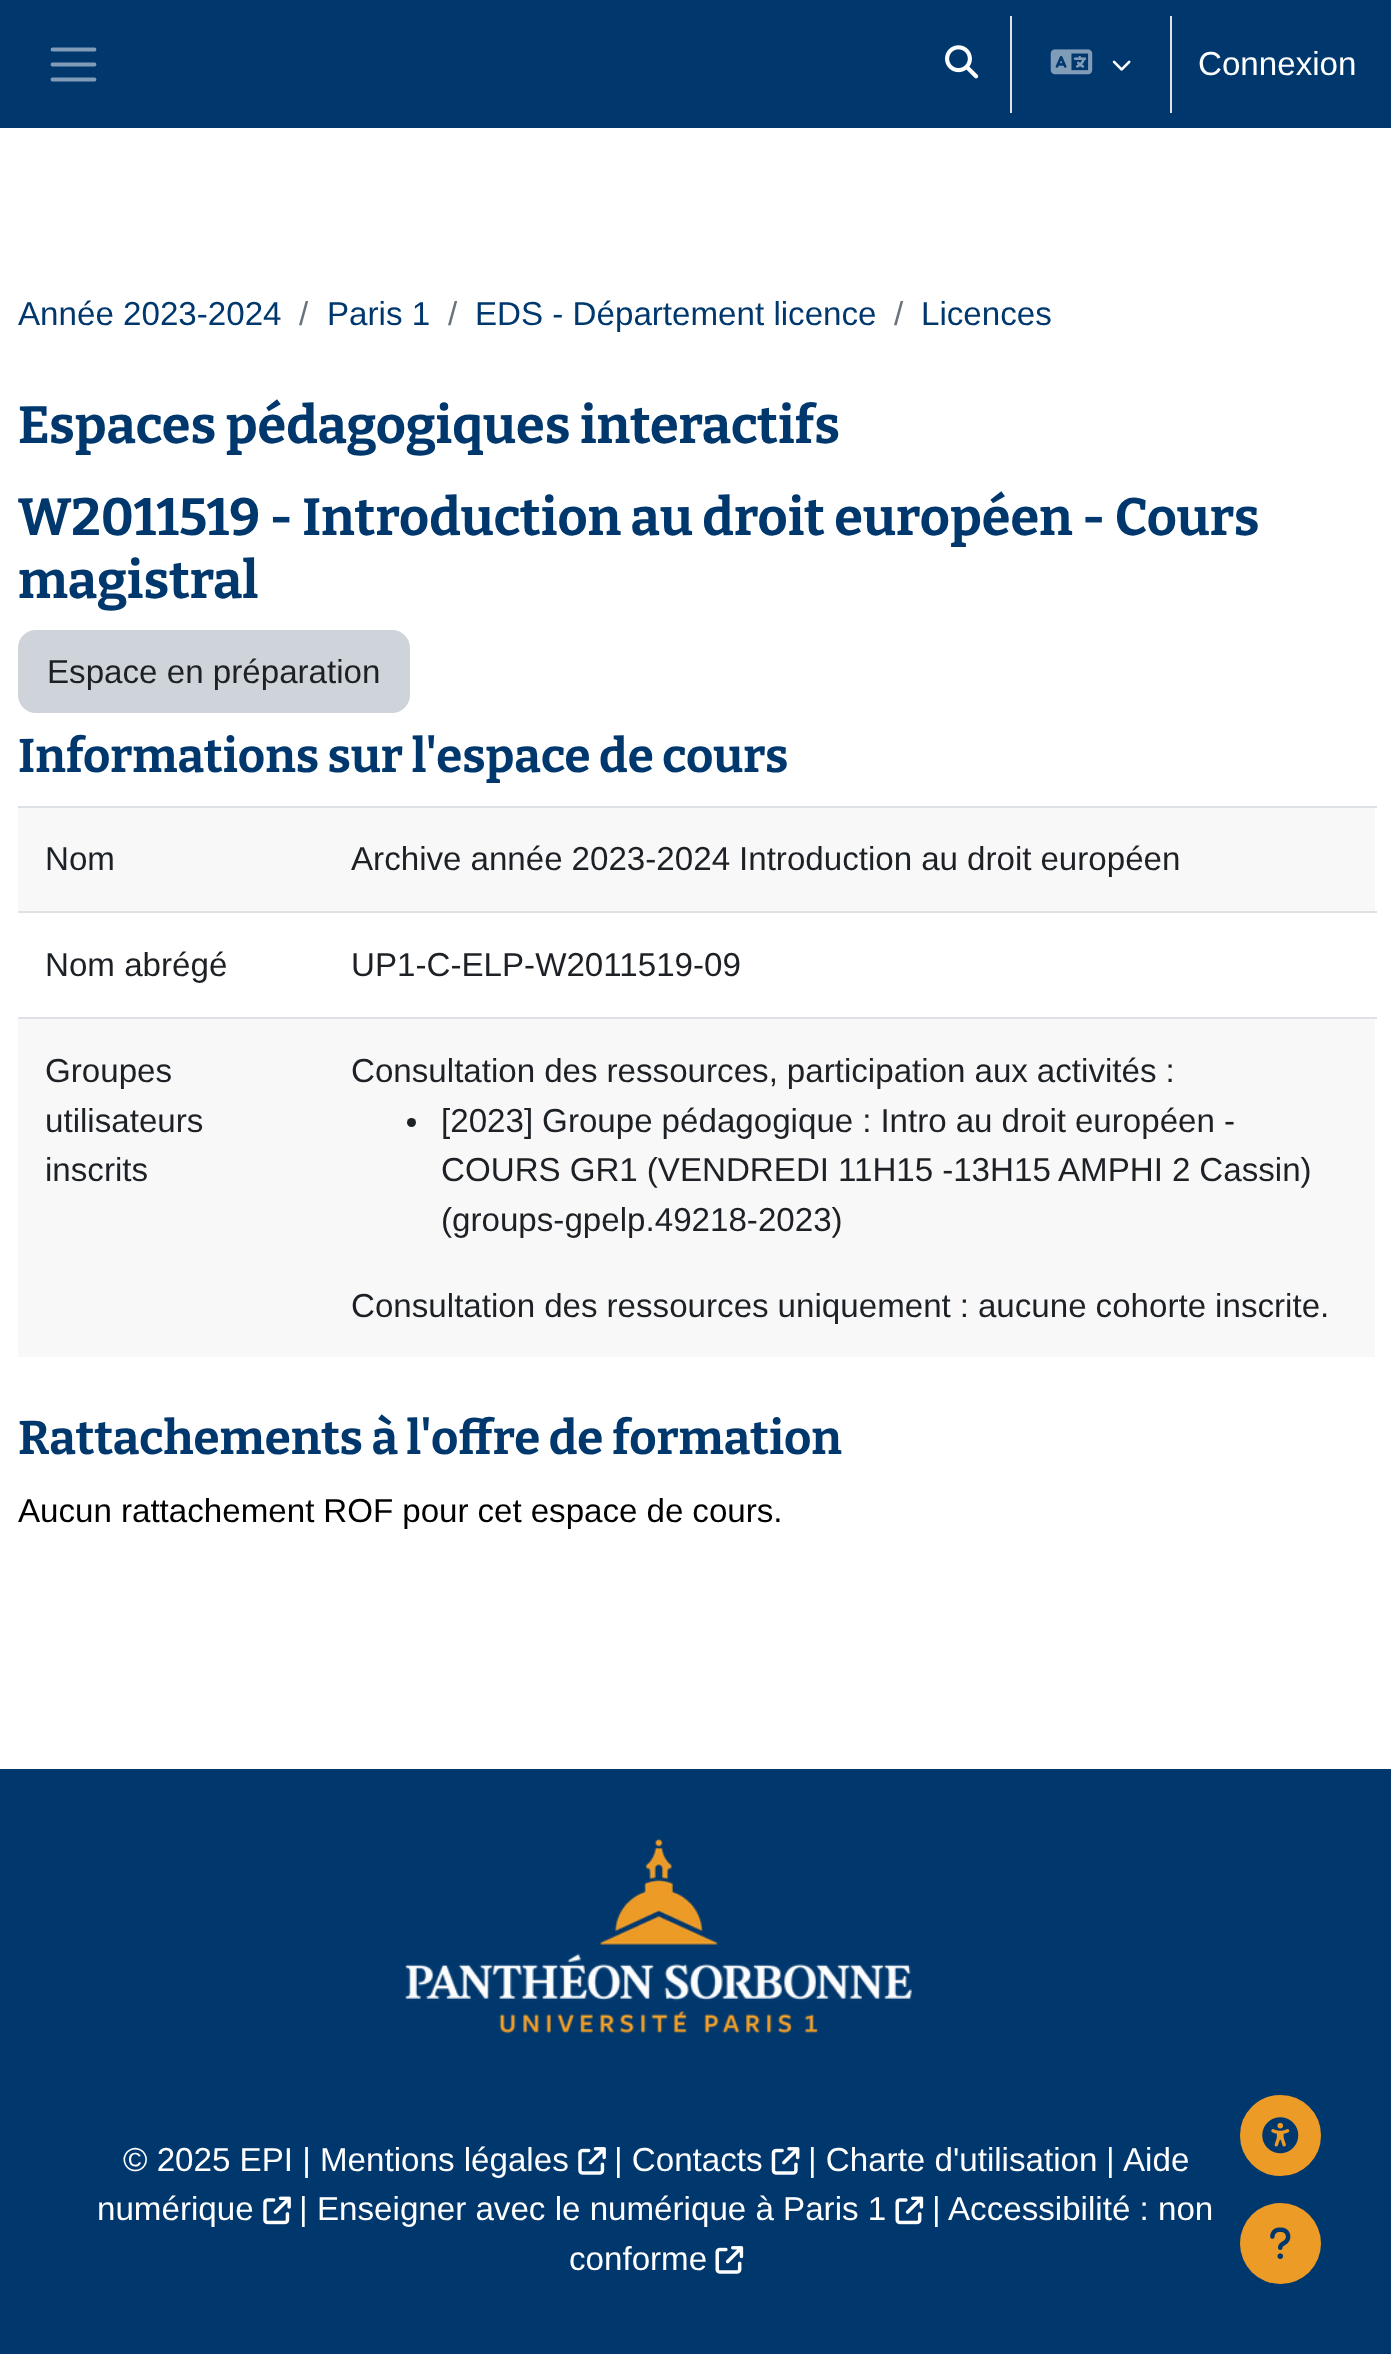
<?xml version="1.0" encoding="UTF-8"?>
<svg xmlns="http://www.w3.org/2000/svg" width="1391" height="2354">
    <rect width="100%" height="100%" fill="#FFFFFF"/>
    <rect x="0" y="0" width="1391" height="128" fill="#00386E"/>
    <path d="M 52.5 49.5 H 94.5 M 52.5 64.5 H 94.5 M 52.5 79.5 H 94.5" fill="none" stroke="#809CB7" stroke-width="3.8" stroke-linecap="round"/>
    <image x="945" y="45" width="34" height="34" href="img_01.png"/>
    <rect x="1010" y="16" width="2" height="97" fill="#DEE2E6"/>
    <image x="1050" y="49" width="43" height="26" href="img_02.png"/>
    <image x="1112" y="60" width="19" height="11" href="img_03.png"/>
    <rect x="1170" y="16" width="2" height="97" fill="#DEE2E6"/>
    <text x="1198" y="75" font-family="Liberation Sans" font-size="33.15" fill="#FFFFFF">Connexion</text>
    <text x="18" y="325" font-family="Liberation Sans" font-size="33.15" fill="#00386E">Année 2023-2024</text>
    <text x="299" y="325" font-family="Liberation Sans" font-size="33.15" fill="#6A737B">/</text>
    <text x="327" y="325" font-family="Liberation Sans" font-size="33.15" fill="#00386E">Paris 1</text>
    <text x="448" y="325" font-family="Liberation Sans" font-size="33.15" fill="#6A737B">/</text>
    <text x="475" y="325" font-family="Liberation Sans" font-size="33.15" fill="#00386E">EDS - Département licence</text>
    <text x="894" y="325" font-family="Liberation Sans" font-size="33.15" fill="#6A737B">/</text>
    <text x="921" y="325" font-family="Liberation Sans" font-size="33.15" fill="#00386E">Licences</text>
    <text font-family="Bitter" font-size="52.25" font-weight="700" fill="#00386E">
        <tspan x="18" y="443">Espaces pédagogiques interactifs</tspan>
        <tspan x="18" y="535">W2011519 - Introduction au droit européen - Cours</tspan>
        <tspan x="18" y="598">magistral</tspan>
    </text>
    <rect x="19" y="631" width="390" height="81" rx="17" fill="#CED4DA" stroke="#CED4DA" stroke-width="2"/>
    <text x="47" y="683" font-family="Liberation Sans" font-size="33.15" fill="#1D2125">Espace en préparation</text>
    <text x="18" y="772" font-family="Bitter" font-size="47.4" font-weight="700" fill="#00386E">Informations sur l'espace de cours</text>
    <rect x="18" y="808" width="1357" height="103" fill="#F8F8F8"/>
    <text x="45" y="870" font-family="Liberation Sans" font-size="33.15" fill="#1D2125">Nom</text>
    <rect x="18" y="806" width="1359" height="2" fill="#DEE2E6"/>
    <text x="351" y="870" word-spacing="-0.25" font-family="Liberation Sans" font-size="33.15" fill="#1D2125">Archive année 2023-2024 Introduction au droit européen</text>
    <text x="45" y="976" font-family="Liberation Sans" font-size="33.15" fill="#1D2125">Nom abrégé</text>
    <rect x="18" y="911" width="1359" height="2" fill="#DEE2E6"/>
    <text x="351" y="976" font-family="Liberation Sans" font-size="33.15" fill="#1D2125">UP1-C-ELP-W2011519-09</text>
    <rect x="18" y="1019" width="1357" height="338" fill="#F8F8F8"/>
    <text font-family="Liberation Sans" font-size="33.15" fill="#1D2125">
        <tspan x="45" y="1082">Groupes</tspan>
        <tspan x="45" y="1132">utilisateurs</tspan>
        <tspan x="45" y="1181">inscrits</tspan>
    </text>
    <rect x="18" y="1017" width="1359" height="2" fill="#DEE2E6"/>
    <text x="351" y="1082" word-spacing="-0.25" font-family="Liberation Sans" font-size="33.15" fill="#1D2125">Consultation des ressources, participation aux activités :</text>
    <circle cx="411.5" cy="1122.5" r="4.5" fill="#1D2125"/>
    <text font-family="Liberation Sans" font-size="33.15" fill="#1D2125">
        <tspan x="441" y="1132" word-spacing="-0.25">[2023] Groupe pédagogique : Intro au droit européen -</tspan>
        <tspan x="441" y="1181" word-spacing="-0.25">COURS GR1 (VENDREDI 11H15 -13H15 AMPHI 2 Cassin)</tspan>
        <tspan x="441" y="1231">(groups-gpelp.49218-2023)</tspan>
    </text>
    <text x="351" y="1317" word-spacing="-0.25" font-family="Liberation Sans" font-size="33.15" fill="#1D2125">Consultation des ressources uniquement : aucune cohorte inscrite.</text>
    <text x="18" y="1454" font-family="Bitter" font-size="47.4" font-weight="700" fill="#00386E">Rattachements à l'offre de formation</text>
    <text x="18" y="1522" word-spacing="-0.25" font-family="Liberation Sans" font-size="33.15" fill="#000000">Aucun rattachement ROF pour cet espace de cours.</text>
    <rect x="0" y="1769" width="1391" height="585" fill="#00386E"/>
    <circle cx="1280.5" cy="2135.5" r="39.5" fill="#ED9B27" stroke="#ED9B27" stroke-width="2"/>
    <image x="1262" y="2117" width="37" height="37" href="img_04.png"/>
    <image x="405" y="1838" width="507" height="196" href="img_05.png"/>
    <text x="123" y="2171" font-family="Liberation Sans" font-size="33.15" fill="#FFFFFF">© 2025 EPI | Mentions légales</text>
    <image x="578" y="2147" width="28" height="28" href="img_06.png"/>
    <text x="614" y="2171" font-family="Liberation Sans" font-size="33.15" fill="#FFFFFF">| Contacts</text>
    <image x="771" y="2147" width="29" height="28" href="img_07.png"/>
    <text x="808" y="2171" font-family="Liberation Sans" font-size="33.15" fill="#FFFFFF">| Charte d'utilisation</text>
    <text x="1106" y="2171" font-family="Liberation Sans" font-size="33.15" fill="#FFFFFF">|</text>
    <text x="1123" y="2171" font-family="Liberation Sans" font-size="33.15" fill="#FFFFFF">Aide</text>
    <text x="97" y="2220" font-family="Liberation Sans" font-size="33.15" fill="#FFFFFF">numérique</text>
    <image x="263" y="2196" width="28" height="29" href="img_08.png"/>
    <text x="299" y="2220" font-family="Liberation Sans" font-size="33.15" fill="#FFFFFF">|</text>
    <text x="317" y="2220" font-family="Liberation Sans" font-size="33.15" fill="#FFFFFF">Enseigner avec le numérique à Paris 1</text>
    <image x="895" y="2196" width="29" height="29" href="img_09.png"/>
    <text x="932" y="2220" font-family="Liberation Sans" font-size="33.15" fill="#FFFFFF">| Accessibilité : non</text>
    <text x="569" y="2270" font-family="Liberation Sans" font-size="33.15" fill="#FFFFFF">conforme</text>
    <image x="715" y="2246" width="29" height="28" href="img_10.png"/>
    <circle cx="1280.5" cy="2243.5" r="40.5" fill="#ED9B27"/>
    <image x="1270" y="2227" width="21" height="32" href="img_11.png"/>
</svg>
